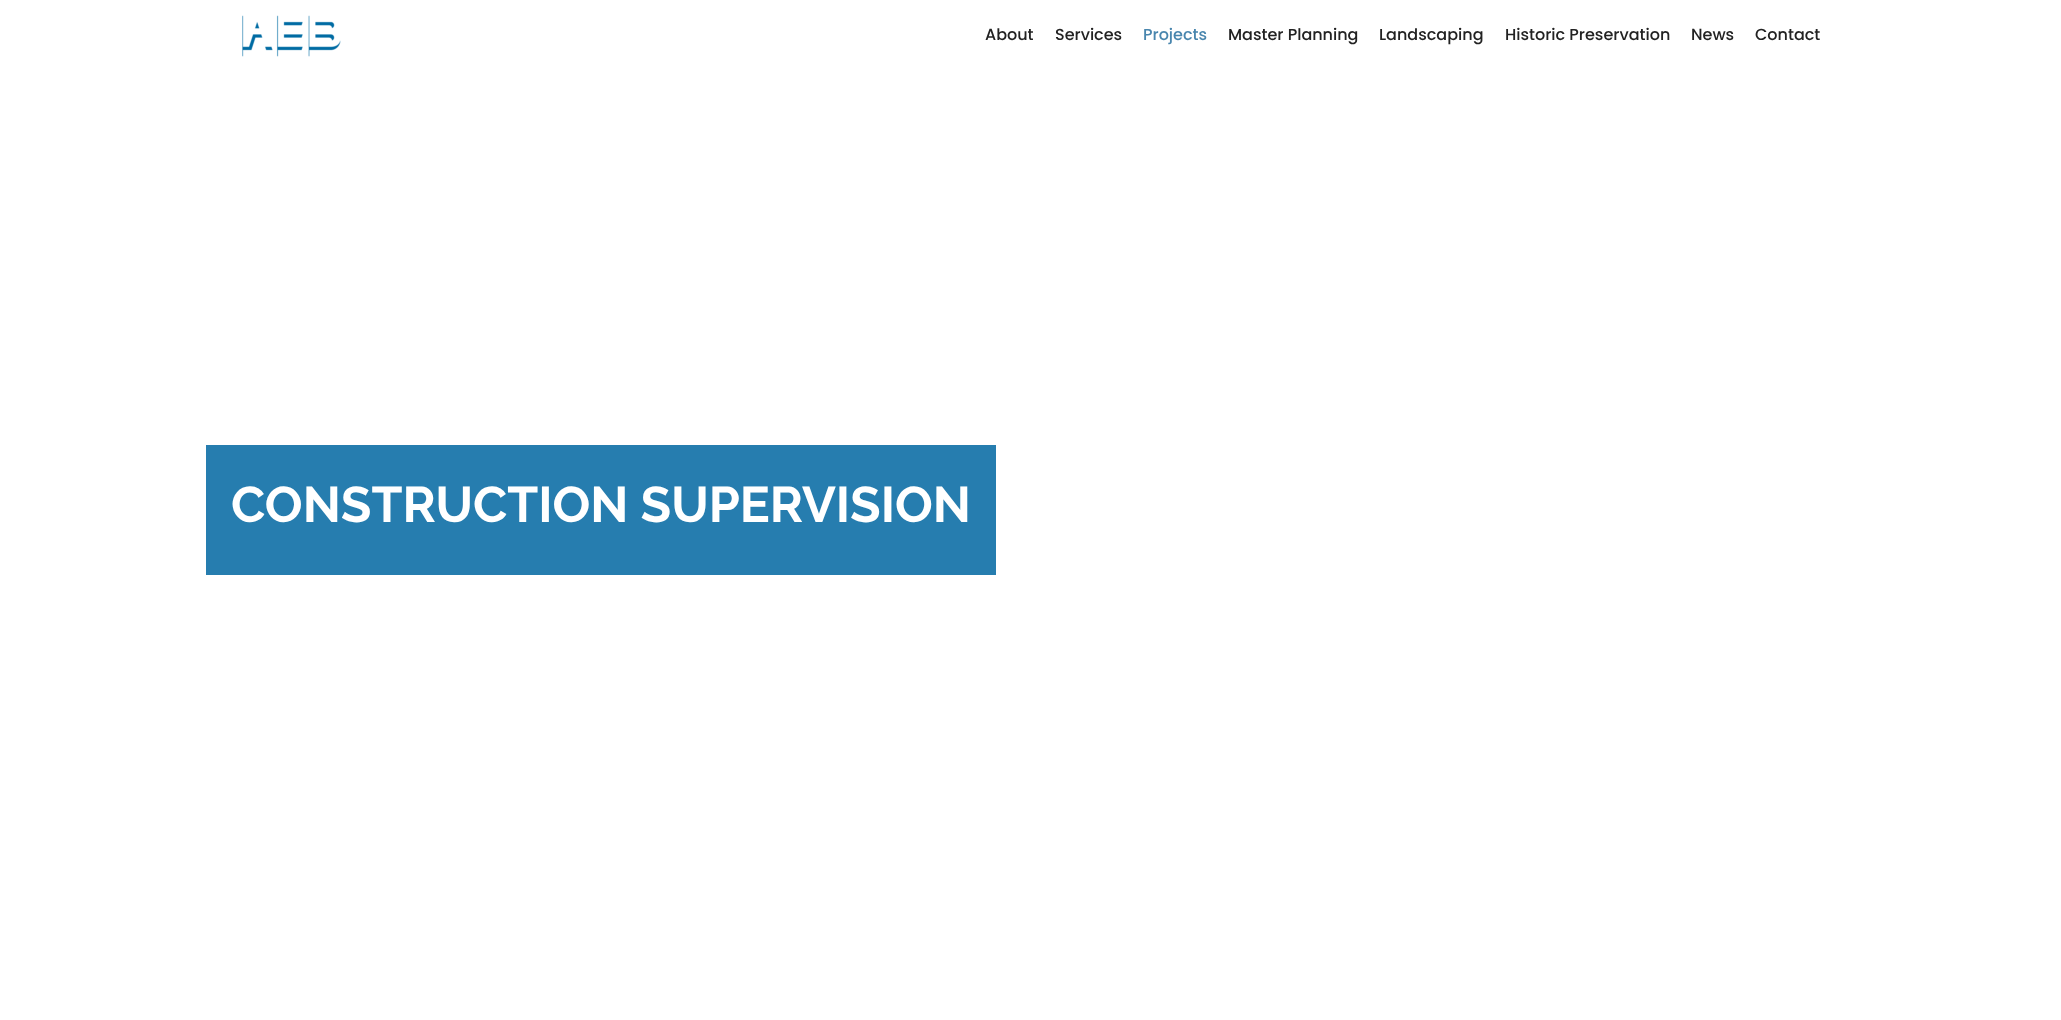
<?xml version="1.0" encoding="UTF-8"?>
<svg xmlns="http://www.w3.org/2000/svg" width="2061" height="1020">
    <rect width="100%" height="100%" fill="#FFFFFF"/>
    <image x="242" y="15" width="99" height="42" href="img_01.png"/>
    <text x="985" y="40" font-family="Poppins" font-size="16" font-weight="500" fill="#222222">About</text>
    <text x="1055" y="40" font-family="Poppins" font-size="16" font-weight="500" fill="#222222">Services</text>
    <text x="1143" y="40" font-family="Poppins" font-size="16" font-weight="500" fill="#4986AE">Projects</text>
    <text x="1228" y="40" font-family="Poppins" font-size="16" font-weight="500" fill="#222222">Master Planning</text>
    <text x="1379" y="40" font-family="Poppins" font-size="16" font-weight="500" fill="#222222">Landscaping</text>
    <text x="1505" y="40" font-family="Poppins" font-size="16" font-weight="500" fill="#222222">Historic Preservation</text>
    <text x="1691" y="40" font-family="Poppins" font-size="16" font-weight="500" fill="#222222">News</text>
    <text x="1755" y="40" font-family="Poppins" font-size="16" font-weight="500" fill="#222222">Contact</text>
    <rect x="206" y="445" width="790" height="130" fill="#267DAF"/>
    <text x="231" y="522" font-family="Raleway" font-size="50" font-weight="700" fill="#FFFFFF">CONSTRUCTION SUPERVISION</text>
</svg>
